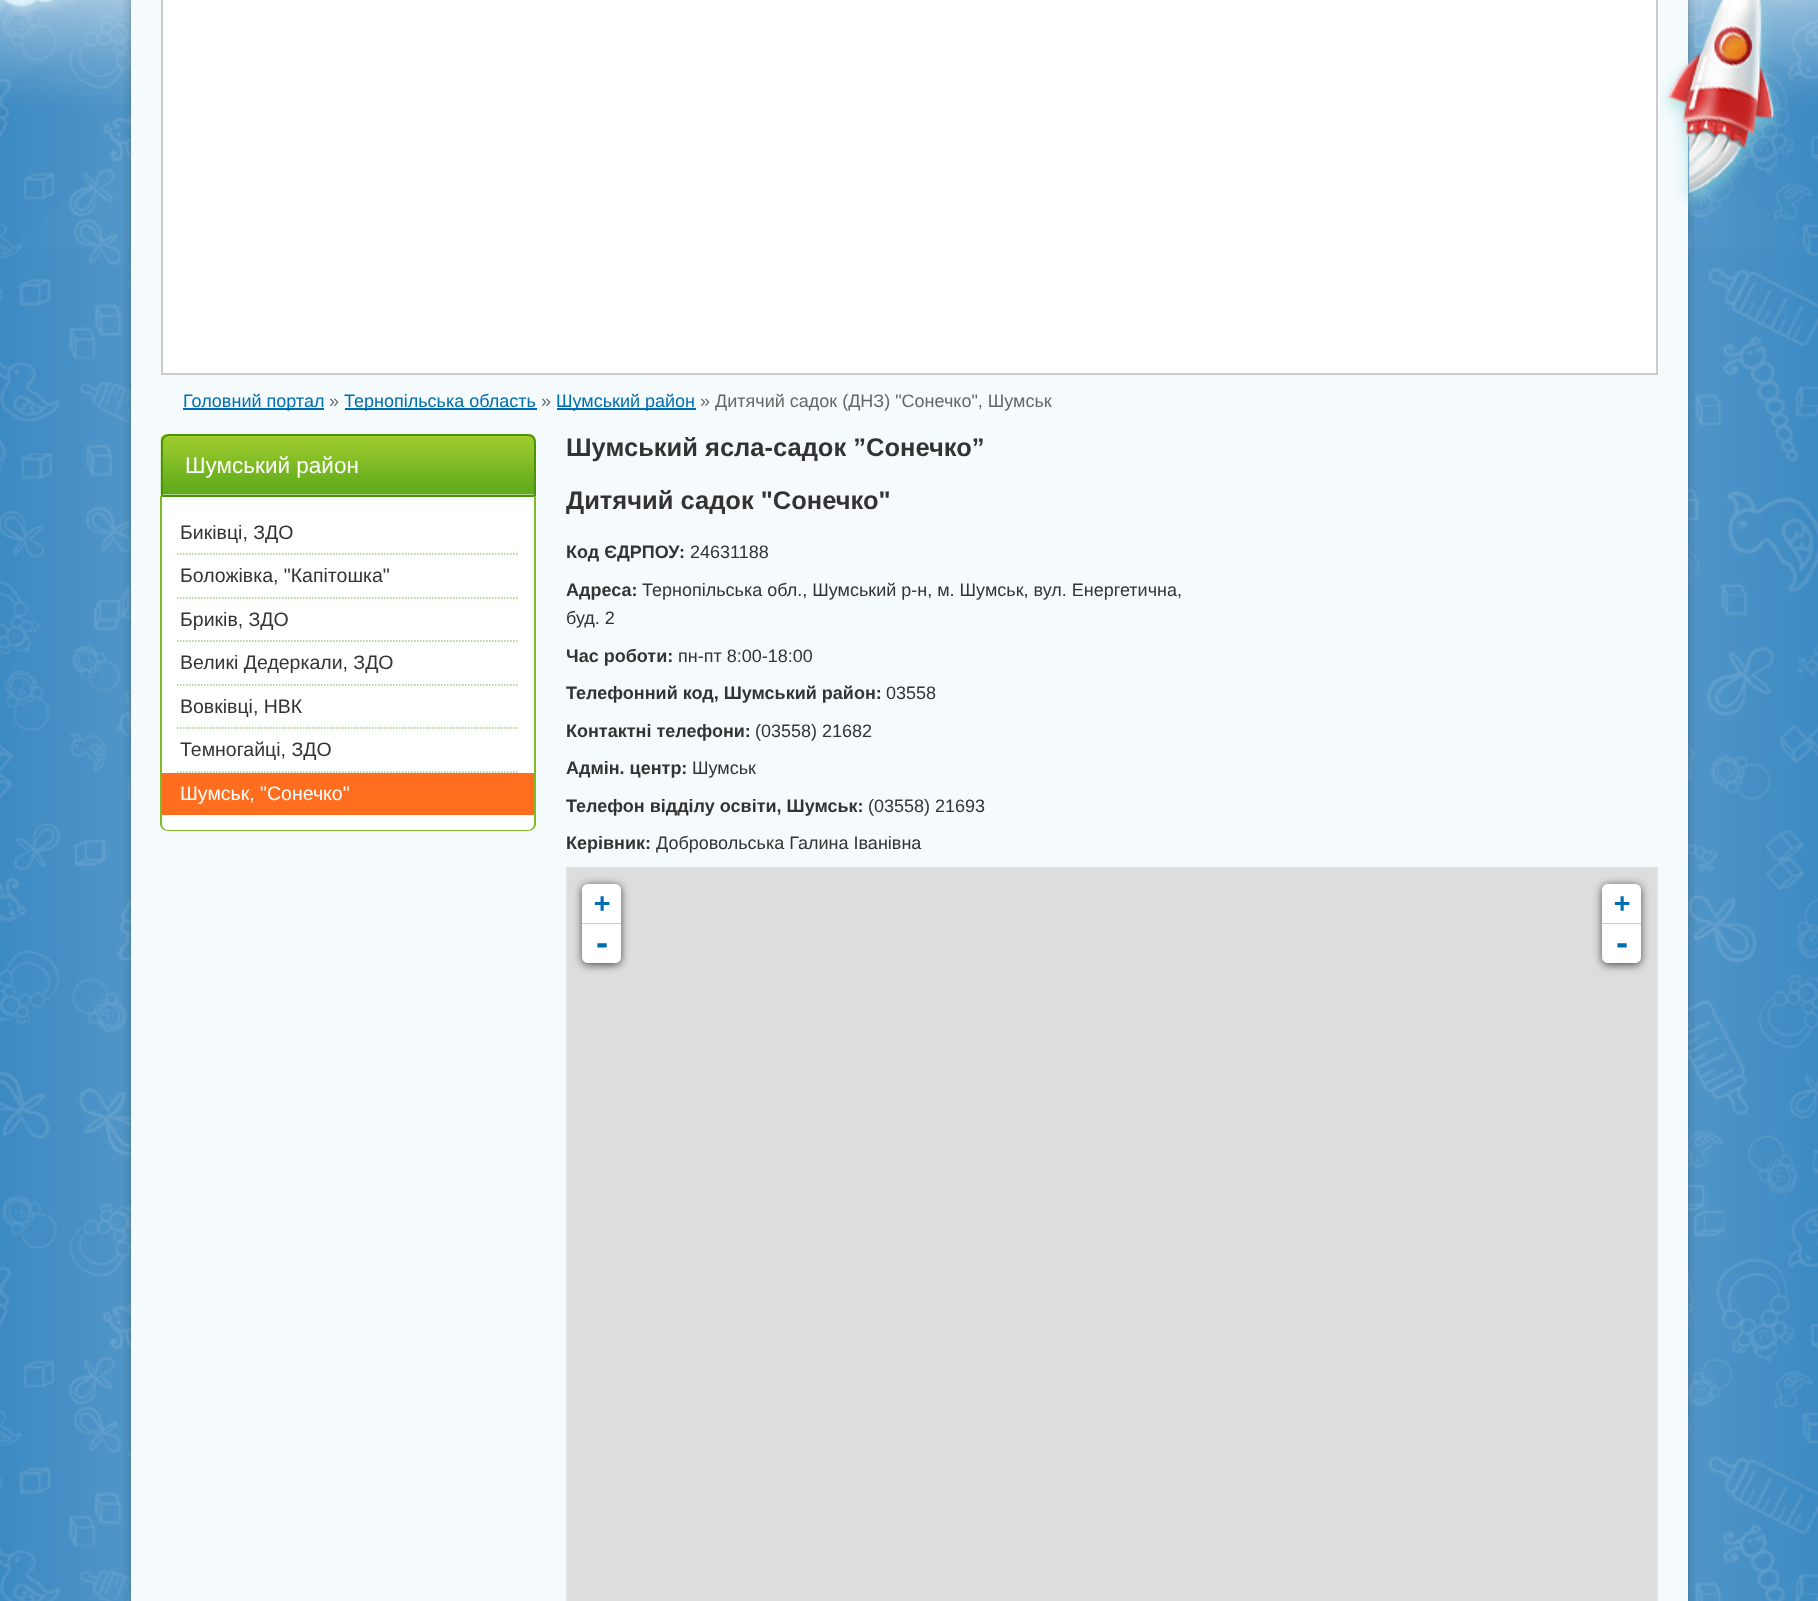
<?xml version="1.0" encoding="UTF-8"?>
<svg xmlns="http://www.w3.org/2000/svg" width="1818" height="1601">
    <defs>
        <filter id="blur1" x="-50%" y="-200%" width="200%" height="500%"><feGaussianBlur stdDeviation="4"/></filter>
    </defs>
    <rect width="100%" height="100%" fill="#0166B0"/>
    <image x="0" y="0" width="1818" height="1601" href="img_01.png"/>
    <image x="0" y="0" width="1818" height="249" href="img_02.png"/>
    <rect x="131" y="-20" width="1557" height="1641" rx="8" fill="#323232" fill-opacity="0.4" filter="url(#blur1)"/>
    <rect x="131" y="0" width="1557" height="1601" fill="#F5FBFD"/>
    <image x="1660" y="0" width="123" height="207" href="img_03.png"/>
    <rect x="162" y="-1" width="1495" height="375" fill="#FFFFFF" stroke="#CCCCCC" stroke-width="2"/>
    <rect x="183" y="408" width="141" height="2" fill="#006DAF"/>
    <text x="183" y="407" font-family="Liberation Sans" font-size="18" fill="#006DAF">Головний портал</text>
    <text x="329" y="407" font-family="Liberation Sans" font-size="18" fill="#666666">»</text>
    <rect x="345" y="408" width="192" height="2" fill="#006DAF"/>
    <text x="344" y="407" font-family="Liberation Sans" font-size="18" fill="#006DAF">Тернопільська область</text>
    <text x="541" y="407" font-family="Liberation Sans" font-size="18" fill="#666666">»</text>
    <rect x="557" y="408" width="139" height="2" fill="#006DAF"/>
    <text x="556" y="407" font-family="Liberation Sans" font-size="18" fill="#006DAF">Шумський район</text>
    <text x="700" y="407" font-family="Liberation Sans" font-size="18" fill="#666666">» Дитячий садок (ДНЗ) "Сонечко", Шумськ</text>
    <image x="160" y="434" width="376" height="61" href="img_04.png"/>
    <path d="M 169 435 H 528 C 532 435 535 438 535 442 V 496 H 162 V 442 C 162 438 165 435 169 435 Z" fill="none" stroke="#4B9407" stroke-width="2"/>
    <text x="185" y="473" font-family="Liberation Sans" font-size="22.5" fill="#FEFEFE">Шумський район</text>
    <path d="M 161 497 H 536 V 823 C 536 827.5 532.5 831 528 831 H 169 C 164.5 831 161 827.5 161 823 Z" fill="#FEFFFF"/>
    <path d="M 160 496 H 536 V 824 C 536 828 532 831 528 831 H 168 C 164 831 160 828 160 824 Z M 162 496 H 534 V 824 C 534 827 531 830 528 830 H 168 C 165 830 162 827 162 824 Z" fill="#7EBB25" fill-rule="evenodd"/>
    <path d="M 177 554 H 519" fill="none" stroke="#A4C983" stroke-width="1.5" stroke-dasharray="1.5 1.5"/>
    <text x="180" y="539" font-family="Liberation Sans" font-size="19.5" fill="#333333">Биківці, ЗДО</text>
    <path d="M 177 598 H 519" fill="none" stroke="#A4C983" stroke-width="1.5" stroke-dasharray="1.5 1.5"/>
    <text x="180" y="582" font-family="Liberation Sans" font-size="19.5" fill="#333333">Боложівка, "Капітошка"</text>
    <path d="M 177 641 H 519" fill="none" stroke="#A4C983" stroke-width="1.5" stroke-dasharray="1.5 1.5"/>
    <text x="180" y="626" font-family="Liberation Sans" font-size="19.5" fill="#333333">Бриків, ЗДО</text>
    <path d="M 177 685 H 519" fill="none" stroke="#A4C983" stroke-width="1.5" stroke-dasharray="1.5 1.5"/>
    <text x="180" y="669" font-family="Liberation Sans" font-size="19.5" fill="#333333">Великі Дедеркали, ЗДО</text>
    <path d="M 177 728 H 519" fill="none" stroke="#A4C983" stroke-width="1.5" stroke-dasharray="1.5 1.5"/>
    <text x="180" y="713" font-family="Liberation Sans" font-size="19.5" fill="#333333">Вовківці, НВК</text>
    <path d="M 177 772 H 519" fill="none" stroke="#A4C983" stroke-width="1.5" stroke-dasharray="1.5 1.5"/>
    <text x="180" y="756" font-family="Liberation Sans" font-size="19.5" fill="#333333">Темногайці, ЗДО</text>
    <rect x="162" y="773" width="372" height="42" fill="#FF6D1F"/>
    <text x="180" y="800" font-family="Liberation Sans" font-size="19.5" fill="#FEFEFE">Шумськ, "Сонечко"</text>
    <text x="566" y="456" font-family="Liberation Sans" font-size="25.5" font-weight="700" fill="#333333">Шумський ясла-садок ”Сонечко”</text>
    <text x="566" y="509" font-family="Liberation Sans" font-size="25.5" font-weight="700" fill="#333333">Дитячий садок "Сонечко"</text>
    <text x="566" y="558" font-family="Liberation Sans" font-size="18" font-weight="700" fill="#333333">Код ЄДРПОУ:</text>
    <text x="690" y="558" font-family="Liberation Sans" font-size="18" fill="#333333">24631188</text>
    <text x="566" y="596" font-family="Liberation Sans" font-size="18" font-weight="700" fill="#333333">Адреса:</text>
    <text x="642" y="596" font-family="Liberation Sans" font-size="18" fill="#333333">Тернопільська обл., Шумський р-н, м. Шумськ, вул. Енергетична,</text>
    <text x="566" y="624" font-family="Liberation Sans" font-size="18" fill="#333333">буд. 2</text>
    <text x="566" y="662" font-family="Liberation Sans" font-size="18" font-weight="700" fill="#333333">Час роботи:</text>
    <text x="678" y="662" font-family="Liberation Sans" font-size="18" fill="#333333">пн-пт 8:00-18:00</text>
    <text x="566" y="699" font-family="Liberation Sans" font-size="18" font-weight="700" fill="#333333">Телефонний код, Шумський район:</text>
    <text x="886" y="699" font-family="Liberation Sans" font-size="18" fill="#333333">03558</text>
    <text x="566" y="737" font-family="Liberation Sans" font-size="18" font-weight="700" fill="#333333">Контактні телефони:</text>
    <text x="755" y="737" font-family="Liberation Sans" font-size="18" fill="#333333">(03558) 21682</text>
    <text x="566" y="774" font-family="Liberation Sans" font-size="18" font-weight="700" fill="#333333">Адмін. центр:</text>
    <text x="692" y="774" font-family="Liberation Sans" font-size="18" fill="#333333">Шумськ</text>
    <text x="566" y="812" font-family="Liberation Sans" font-size="18" font-weight="700" fill="#333333">Телефон відділу освіти, Шумськ:</text>
    <text x="868" y="812" font-family="Liberation Sans" font-size="18" fill="#333333">(03558) 21693</text>
    <text x="566" y="849" font-family="Liberation Sans" font-size="18" font-weight="700" fill="#333333">Керівник:</text>
    <text x="656" y="849" font-family="Liberation Sans" font-size="18" fill="#333333">Добровольська Галина Іванівна</text>
    <rect x="567" y="868" width="1090" height="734" fill="#DDDDDD" stroke="#E0E0E0" stroke-width="2"/>
    <rect x="582" y="885" width="39" height="80" rx="6" fill="#000000" fill-opacity="0.65" filter="url(#blur1)"/>
    <path d="M 588 884 H 615 C 618.5 884 621 886.5 621 890 V 924 H 582 V 890 C 582 886.5 584.5 884 588 884 Z" fill="#FFFFFF"/>
    <rect x="582" y="923" width="39" height="1" fill="#CCCCCC"/>
    <text x="594" y="912" font-family="DejaVu Sans Mono" font-size="27" font-weight="700" fill="#006DAF">+</text>
    <path d="M 582 924 H 621 V 957 C 621 960.5 618.5 963 615 963 H 588 C 584.5 963 582 960.5 582 957 Z" fill="#FFFFFF"/>
    <text x="593" y="954" font-family="DejaVu Sans Mono" font-size="30" font-weight="700" fill="#006DAF">-</text>
    <rect x="1602" y="885" width="39" height="80" rx="6" fill="#000000" fill-opacity="0.65" filter="url(#blur1)"/>
    <path d="M 1608 884 H 1635 C 1638.5 884 1641 886.5 1641 890 V 924 H 1602 V 890 C 1602 886.5 1604.5 884 1608 884 Z" fill="#FFFFFF"/>
    <rect x="1602" y="923" width="39" height="1" fill="#CCCCCC"/>
    <text x="1614" y="912" font-family="DejaVu Sans Mono" font-size="27" font-weight="700" fill="#006DAF">+</text>
    <path d="M 1602 924 H 1641 V 957 C 1641 960.5 1638.5 963 1635 963 H 1608 C 1604.5 963 1602 960.5 1602 957 Z" fill="#FFFFFF"/>
    <text x="1613" y="954" font-family="DejaVu Sans Mono" font-size="30" font-weight="700" fill="#006DAF">-</text>
</svg>
